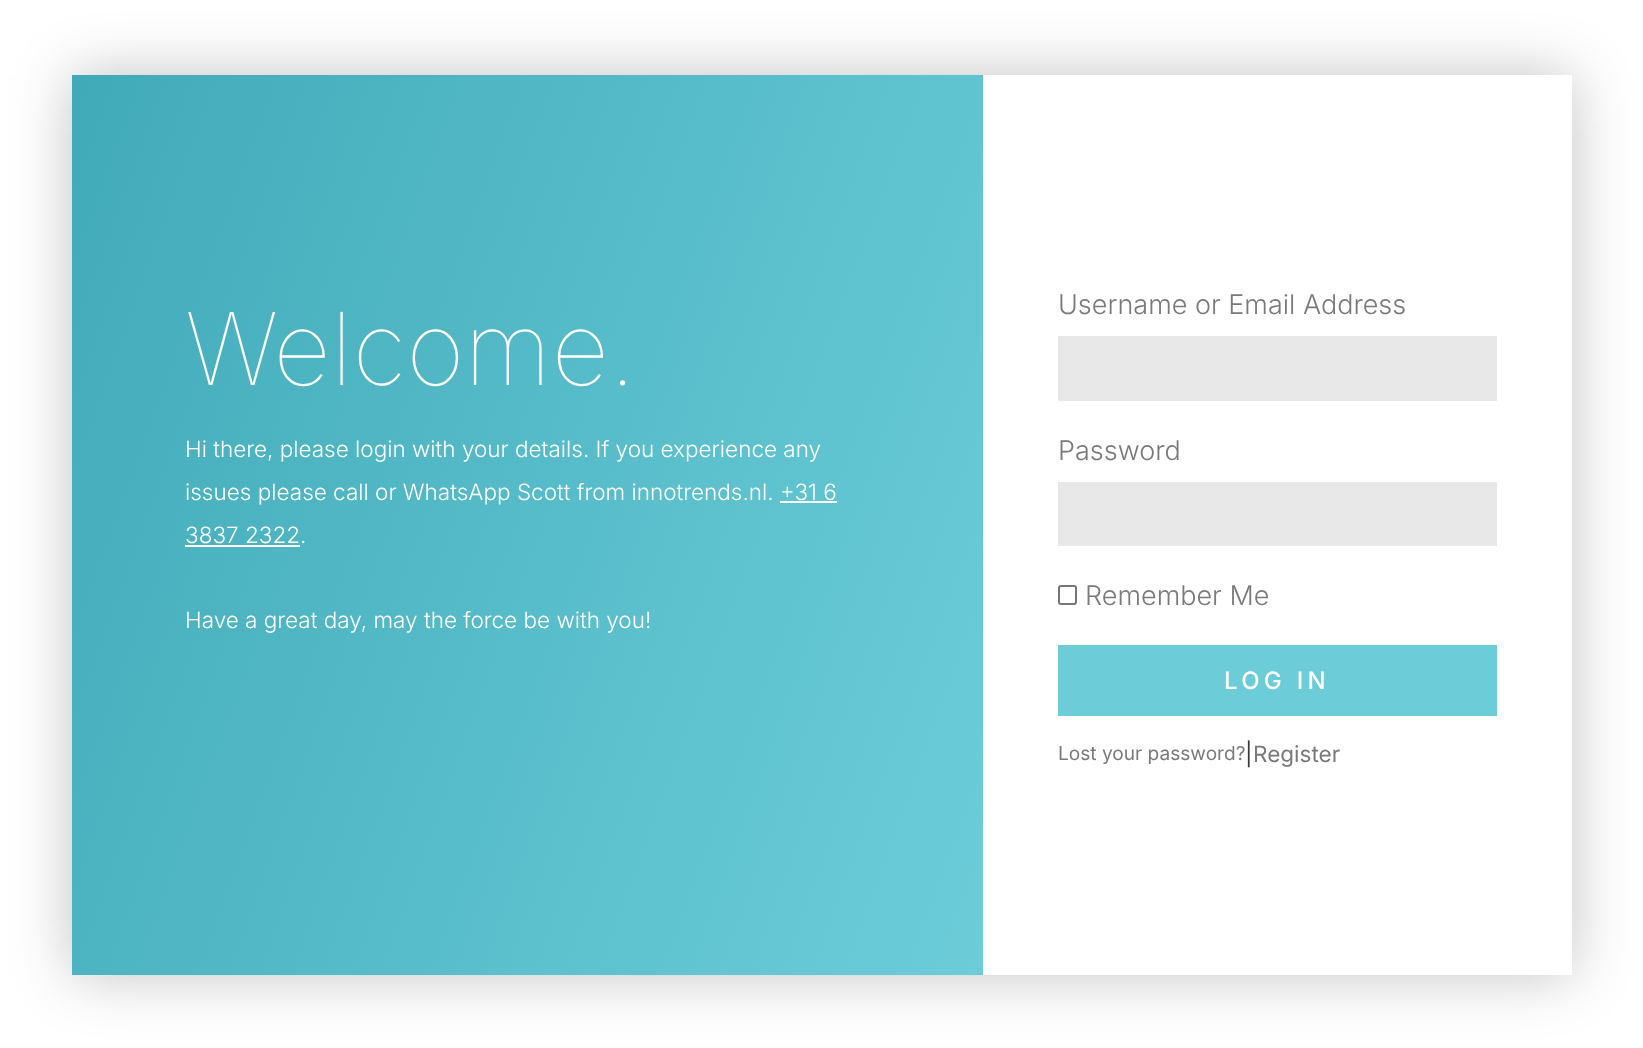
<?xml version="1.0" encoding="UTF-8"?>
<svg xmlns="http://www.w3.org/2000/svg" width="1643" height="1048">
    <defs>
        <clipPath id="clip1"><path d="M 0 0 H 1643 V 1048 H 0 Z M 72 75 H 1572 V 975 H 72 Z" clip-rule="evenodd"/></clipPath>
        <filter id="blur1" x="-50%" y="-200%" width="200%" height="500%"><feGaussianBlur stdDeviation="30"/></filter>
        <linearGradient id="g1" gradientUnits="userSpaceOnUse" x1="1074" y1="724" x2="-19" y2="326"><stop offset="0" stop-color="#6CCDD9"/><stop offset="1" stop-color="#41AAB9"/></linearGradient>
    </defs>
    <rect width="100%" height="100%" fill="#FFFFFF"/>
    <g clip-path="url(#clip1)">
        <rect x="72" y="75" width="1500" height="900" fill="#000000" fill-opacity="0.24" filter="url(#blur1)"/>
    </g>
    <rect x="72" y="75" width="911" height="900" fill="url(#g1)"/>
    <text x="185" y="385" font-family="Inter" font-size="100.5" font-weight="100" fill="#FFFFFF">Welcome.</text>
    <text font-family="Inter" font-size="22.5" font-weight="300" fill="#FFFFFF">
        <tspan x="185" y="457">Hi there, please login with your details. If you experience any</tspan>
        <tspan x="185" y="500">issues please call or WhatsApp Scott from innotrends.nl. +31 6</tspan>
        <tspan x="185" y="543">3837 2322.</tspan>
    </text>
    <rect x="780" y="501" width="57" height="2" fill="#FFFFFF"/>
    <rect x="185" y="545" width="115" height="2" fill="#FFFFFF"/>
    <text x="185" y="628" font-family="Inter" font-size="22.5" font-weight="300" fill="#FFFFFF">Have a great day, may the force be with you!</text>
    <text x="1058" y="314" font-family="Inter" font-size="27" font-weight="300" fill="#7A7A7A">Username or Email Address</text>
    <rect x="1058" y="336" width="439" height="65" fill="#E8E8E8"/>
    <text x="1058" y="460" font-family="Inter" font-size="27" font-weight="300" fill="#7A7A7A">Password</text>
    <rect x="1058" y="482" width="439" height="64" fill="#E8E8E8"/>
    <rect x="1059" y="586" width="17" height="18" rx="2" fill="none" stroke="#767676" stroke-width="2"/>
    <text x="1085" y="605" font-family="Inter" font-size="27" font-weight="300" fill="#7A7A7A">Remember Me</text>
    <rect x="1058" y="645" width="439" height="71" fill="#6CCDD9"/>
    <text x="1224" y="689" font-family="Inter" font-size="24" font-weight="500" letter-spacing="4.25" fill="#FFFFFF">LOG IN</text>
    <text x="1058" y="760" font-family="Inter" font-size="19.1" fill="#7A7A7A">Lost your password?</text>
    <text x="1245" y="762" font-family="Inter" font-size="22.5" fill="#3A3A3A">|</text>
    <text x="1253" y="762" font-family="Inter" font-size="22.5" fill="#7A7A7A">Register</text>
</svg>
